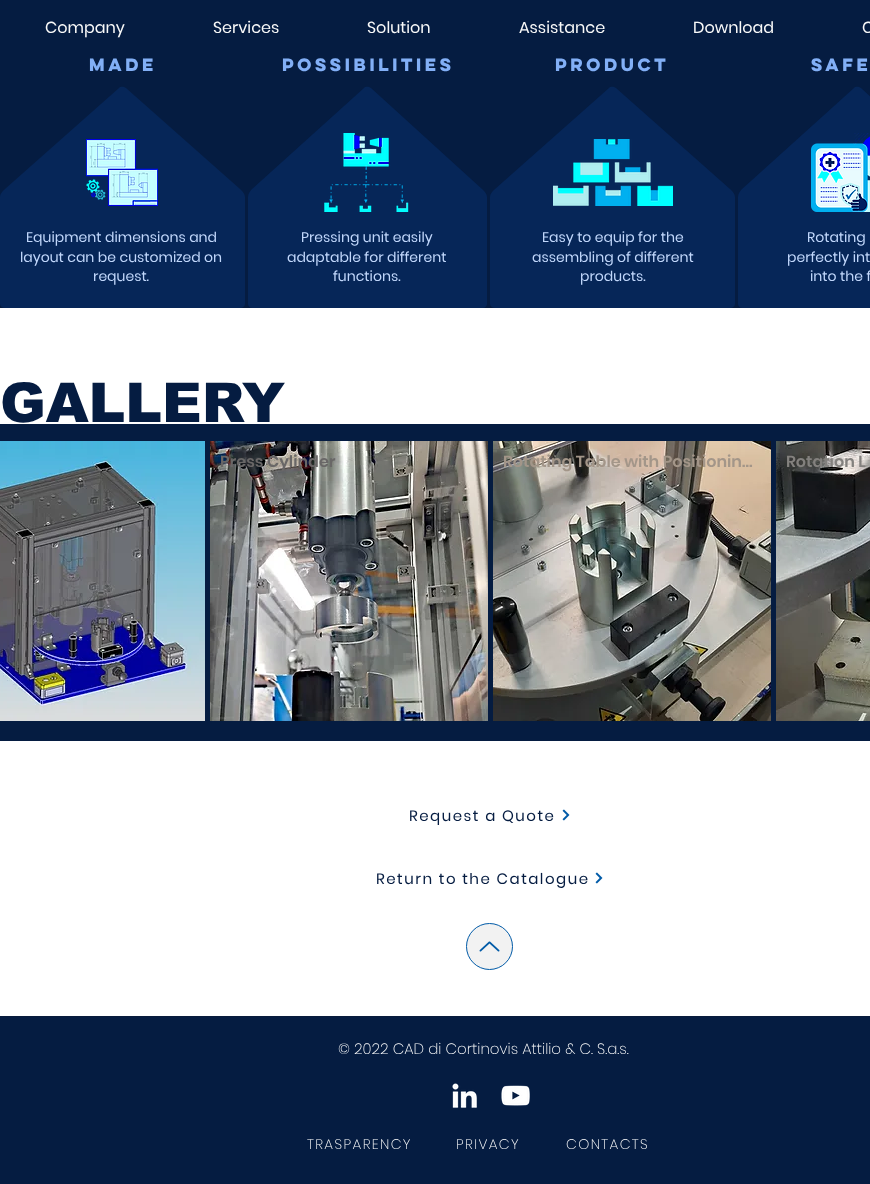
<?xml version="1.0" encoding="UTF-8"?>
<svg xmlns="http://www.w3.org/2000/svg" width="870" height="1184">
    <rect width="100%" height="100%" fill="#FFFFFF"/>
    <rect x="0" y="0" width="870" height="308" fill="#051C41"/>
    <text x="45" y="33" font-family="Poppins" font-size="16" fill="#F9F9F9">Company</text>
    <text x="213" y="33" font-family="Poppins" font-size="16" fill="#F9F9F9">Services</text>
    <text x="367" y="33" font-family="Poppins" font-size="16" fill="#F9F9F9">Solution</text>
    <text x="519" y="33" font-family="Poppins" font-size="16" fill="#F9F9F9">Assistance</text>
    <text x="693" y="33" font-family="Poppins" font-size="16" fill="#F9F9F9">Download</text>
    <text x="862" y="33" font-family="Poppins" font-size="16" fill="#F9F9F9">C</text>
    <text x="89" y="71" font-family="'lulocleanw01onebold'" font-size="16" font-weight="700" fill="#82AFF6">made</text>
    <path d="M 245 304 C 245 306 243 308 240 308 H 5 C 2 308 0 306 0 304 V 197 C 0 193 5 189 5 189 L 119 88 C 121 86 124 87 126 88 L 240 189 C 240 189 245 193 245 197 Z" fill="#062658"/>
    <image x="86" y="139" width="72" height="67" href="img_01.png"/>
    <text x="26" y="242" font-family="Poppins" font-size="14" fill="#C1D7FB">Equipment dimensions and</text>
    <text x="20" y="262" font-family="Poppins" font-size="14" fill="#C1D7FB">layout can be customized on</text>
    <text x="93" y="281" font-family="Poppins" font-size="14" fill="#C1D7FB">request.</text>
    <text x="282" y="71" font-family="'lulocleanw01onebold'" font-size="16" font-weight="700" fill="#82AFF6">POSSIBILITIES</text>
    <path d="M 487 304 C 487 306 485 308 483 308 H 252 C 250 308 248 306 248 304 V 197 C 248 193 252 189 252 189 L 364 88 C 366 86 369 87 371 88 L 482 189 C 482 189 487 193 487 197 Z" fill="#062658"/>
    <image x="324" y="133" width="85" height="79" href="img_02.png"/>
    <text x="301" y="242" font-family="Poppins" font-size="14" fill="#C1D7FB">Pressing unit easily</text>
    <text x="287" y="262" font-family="Poppins" font-size="14" fill="#C1D7FB">adaptable for different</text>
    <text x="333" y="281" font-family="Poppins" font-size="14" fill="#C1D7FB">functions.</text>
    <text x="555" y="71" font-family="'lulocleanw01onebold'" font-size="16" font-weight="700" fill="#82AFF6">PRODUCT</text>
    <path d="M 735 304 C 735 306 733 308 730 308 H 495 C 492 308 490 306 490 304 V 197 C 490 193 495 189 495 189 L 609 88 C 611 86 614 87 616 88 L 730 189 C 730 189 735 193 735 197 Z" fill="#062658"/>
    <image x="553" y="139" width="120" height="67" href="img_03.png"/>
    <text x="542" y="242" font-family="Poppins" font-size="14" fill="#C1D7FB">Easy to equip for the</text>
    <text x="532" y="262" font-family="Poppins" font-size="14" fill="#C1D7FB">assembling of different</text>
    <text x="580" y="281" font-family="Poppins" font-size="14" fill="#C1D7FB">products.</text>
    <text x="811" y="71" font-family="'lulocleanw01onebold'" font-size="16" font-weight="700" fill="#82AFF6">SAFE</text>
    <path d="M 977 304 C 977 306 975 308 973 308 H 742 C 740 308 738 306 738 304 V 197 C 738 193 742 189 742 189 L 854 88 C 856 86 859 87 861 88 L 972 189 C 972 189 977 193 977 197 Z" fill="#062658"/>
    <image x="811" y="133" width="59" height="79" href="img_04.png"/>
    <text x="807" y="242" font-family="Poppins" font-size="14" fill="#C1D7FB">Rotating</text>
    <text x="787" y="262" font-family="Poppins" font-size="14" fill="#C1D7FB">perfectly int</text>
    <text x="810" y="281" font-family="Poppins" font-size="14" fill="#C1D7FB">into the f</text>
    <text x="0" y="422" font-family="arial" font-size="55" font-weight="900" fill="#051C41">GALLERY</text>
    <rect x="0" y="424" width="870" height="317" fill="#051C41"/>
    <image x="0" y="441" width="205" height="280" href="img_05.png"/>
    <image x="210" y="441" width="278" height="280" href="img_06.png"/>
    <text x="220" y="467" font-family="Poppins" font-size="16" font-weight="600" fill="#696767">Press Cylinder</text>
    <image x="493" y="441" width="278" height="280" href="img_07.png"/>
    <text x="503" y="467" font-family="Poppins" font-size="16" font-weight="600" fill="#A39689">Rotating Table with Positionin…</text>
    <image x="776" y="441" width="94" height="280" href="img_08.png"/>
    <text x="786" y="467" font-family="Poppins" font-size="16" font-weight="600" fill="#83817E">Rotation L</text>
    <text x="409" y="821" font-family="Poppins" font-size="15" letter-spacing="1.5" fill="#051C41">Request a Quote</text>
    <image x="562" y="809" width="8" height="12" href="img_09.png"/>
    <text x="376" y="884" font-family="Poppins" font-size="15" letter-spacing="1.5" fill="#051C41">Return to the Catalogue</text>
    <image x="595" y="872" width="8" height="12" href="img_09.png"/>
    <circle cx="489.5" cy="946.5" r="23" fill="#F2F2F2" stroke="#005AA7"/>
    <image x="479" y="941" width="21" height="11" href="img_10.png"/>
    <rect x="0" y="1017" width="870" height="167" fill="#051C41"/>
    <rect x="0" y="1016" width="870" height="1" fill="#081B3B"/>
    <text x="338" y="1054" font-family="Poppins" font-size="15" font-weight="200" fill="#FFFFFF">© 2022 CAD di Cortinovis Attilio &amp; C. S.a.s.</text>
    <image x="452" y="1083" width="25" height="25" href="img_11.png"/>
    <image x="501" y="1085" width="29" height="21" href="img_12.png"/>
    <text x="307" y="1149" font-family="Poppins" font-size="14" font-weight="200" letter-spacing="1.4" fill="#FFFFFF">TRASPARENCY</text>
    <text x="456" y="1149" font-family="Poppins" font-size="14" font-weight="200" letter-spacing="1.4" fill="#FFFFFF">PRIVACY</text>
    <text x="566" y="1149" font-family="Poppins" font-size="14" font-weight="200" letter-spacing="1.4" fill="#FFFFFF">CONTACTS</text>
</svg>
